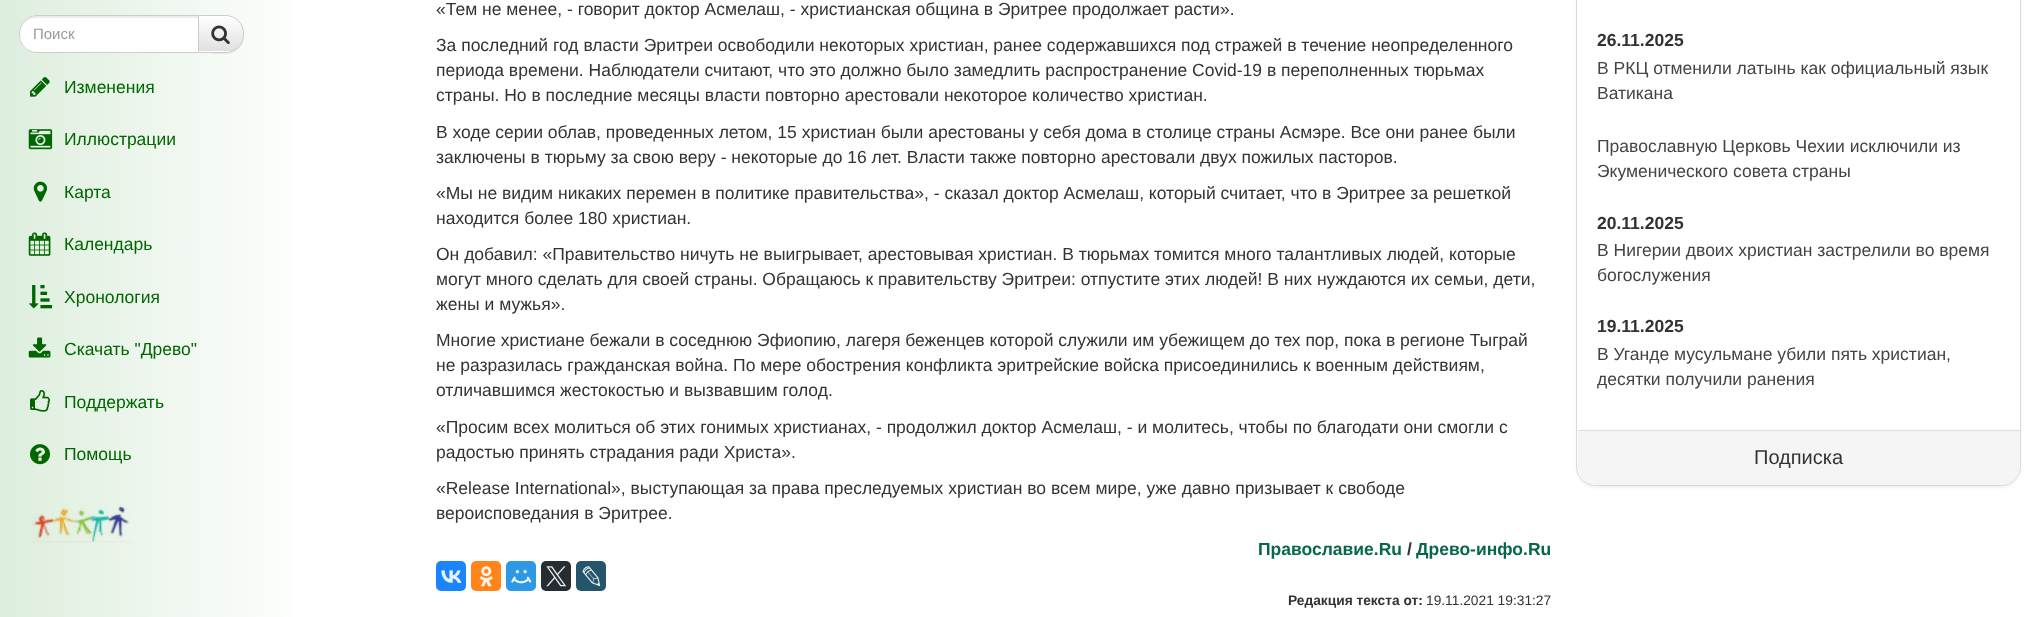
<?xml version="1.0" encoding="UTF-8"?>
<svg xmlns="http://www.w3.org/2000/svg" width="2039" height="617">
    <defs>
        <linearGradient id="g1" gradientUnits="userSpaceOnUse" x1="0" y1="-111" x2="313" y2="-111"><stop offset="0" stop-color="#DDEEDD"/><stop offset="1" stop-color="#FFFFFF"/></linearGradient>
        <filter id="blur1" x="-50%" y="-200%" width="200%" height="500%"><feGaussianBlur stdDeviation="0.5"/></filter>
        <clipPath id="clip1"><path d="M 198 15 H 226 C 236 15 244 23 244 33 V 35 C 244 45 236 53 226 53 H 198 Z"/></clipPath>
        <linearGradient id="g2" gradientUnits="userSpaceOnUse" x1="221" y1="16" x2="221" y2="51"><stop offset="0" stop-color="#FFFFFF"/><stop offset="1" stop-color="#E0E0E0"/></linearGradient>
        <filter id="blur2" x="-50%" y="-200%" width="200%" height="500%"><feGaussianBlur stdDeviation="1"/></filter>
    </defs>
    <rect width="100%" height="100%" fill="#FFFFFF"/>
    <rect x="0" y="0" width="290" height="617" fill="url(#g1)"/>
    <rect x="198" y="16" width="46" height="38" rx="18" fill="#000000" fill-opacity="0.07" filter="url(#blur1)"/>
    <path d="M 198 15 H 226 C 236 15 244 23 244 33 V 35 C 244 45 236 53 226 53 H 198 Z" fill="#FFFFFF"/>
    <g clip-path="url(#clip1)">
        <rect x="199" y="16" width="45" height="35" fill="url(#g2)"/>
    </g>
    <path d="M 198.5 15.5 H 226 C 235.5 15.5 243.5 23.5 243.5 33 V 35 C 243.5 44.5 235.5 52.5 226 52.5 H 198.5 Z" fill="none" stroke="#CCCCCC"/>
    <path d="M 37 15 H 199 V 53 H 37 C 27 53 19 45 19 35 V 33 C 19 23 27 15 37 15 Z" fill="#FFFFFF"/>
    <path d="M 36 18 H 198 V 16 H 36 C 27 16 20 23 20 32 C 21 25 26 18 36 18 Z" fill="#ECECEC"/>
    <path d="M 37 15.5 H 198.5 V 52.5 H 37 C 27.5 52.5 19.5 44.5 19.5 35 V 33 C 19.5 23.5 27.5 15.5 37 15.5 Z" fill="none" stroke="#CCCCCC"/>
    <text x="33" y="39" font-family="Liberation Sans" font-size="15" fill="#999999">Поиск</text>
    <image x="211" y="25" width="19" height="20" href="img_01.png"/>
    <image x="30" y="77" width="20" height="20" href="img_02.png"/>
    <text x="64" y="93" font-family="Liberation Sans" font-size="17.5" fill="#006600">Изменения</text>
    <image x="28" y="129" width="25" height="21" href="img_03.png"/>
    <text x="64" y="145" font-family="Liberation Sans" font-size="17.5" fill="#006600">Иллюстрации</text>
    <image x="33" y="181" width="15" height="21" href="img_04.png"/>
    <text x="64" y="198" font-family="Liberation Sans" font-size="17.5" fill="#006600">Карта</text>
    <image x="28" y="232" width="23" height="24" href="img_05.png"/>
    <text x="64" y="250" font-family="Liberation Sans" font-size="17.5" fill="#006600">Календарь</text>
    <image x="29" y="285" width="24" height="24" href="img_06.png"/>
    <text x="64" y="303" font-family="Liberation Sans" font-size="17.5" fill="#006600">Хронология</text>
    <image x="28" y="337" width="23" height="21" href="img_07.png"/>
    <text x="64" y="355" font-family="Liberation Sans" font-size="17.5" fill="#006600">Скачать "Древо"</text>
    <image x="30" y="390" width="20" height="22" href="img_08.png"/>
    <text x="64" y="408" font-family="Liberation Sans" font-size="17.5" fill="#006600">Поддержать</text>
    <image x="30" y="444" width="20" height="21" href="img_09.png"/>
    <text x="64" y="460" font-family="Liberation Sans" font-size="17.5" fill="#006600">Помощь</text>
    <image x="31" y="504" width="101" height="39" href="img_10.png"/>
    <text x="436" y="15" font-family="Liberation Sans" font-size="17.5" fill="#333333">«Тем не менее, - говорит доктор Асмелаш, - христианская община в Эритрее продолжает расти».</text>
    <text font-family="Liberation Sans" font-size="17.5" fill="#333333">
        <tspan x="436" y="51">За последний год власти Эритреи освободили некоторых христиан, ранее содержавшихся под стражей в течение неопределенного</tspan>
        <tspan x="436" y="76">периода времени. Наблюдатели считают, что это должно было замедлить распространение Covid-19 в переполненных тюрьмах</tspan>
        <tspan x="436" y="101">страны. Но в последние месяцы власти повторно арестовали некоторое количество христиан.</tspan>
    </text>
    <text font-family="Liberation Sans" font-size="17.5" fill="#333333">
        <tspan x="436" y="138">В ходе серии облав, проведенных летом, 15 христиан были арестованы у себя дома в столице страны Асмэре. Все они ранее были</tspan>
        <tspan x="436" y="163">заключены в тюрьму за свою веру - некоторые до 16 лет. Власти также повторно арестовали двух пожилых пасторов.</tspan>
    </text>
    <text font-family="Liberation Sans" font-size="17.5" fill="#333333">
        <tspan x="436" y="199">«Мы не видим никаких перемен в политике правительства», - сказал доктор Асмелаш, который считает, что в Эритрее за решеткой</tspan>
        <tspan x="436" y="224">находится более 180 христиан.</tspan>
    </text>
    <text font-family="Liberation Sans" font-size="17.5" fill="#333333">
        <tspan x="436" y="260">Он добавил: «Правительство ничуть не выигрывает, арестовывая христиан. В тюрьмах томится много талантливых людей, которые</tspan>
        <tspan x="436" y="285">могут много сделать для своей страны. Обращаюсь к правительству Эритреи: отпустите этих людей! В них нуждаются их семьи, дети,</tspan>
        <tspan x="436" y="310">жены и мужья».</tspan>
    </text>
    <text font-family="Liberation Sans" font-size="17.5" fill="#333333">
        <tspan x="436" y="346">Многие христиане бежали в соседнюю Эфиопию, лагеря беженцев которой служили им убежищем до тех пор, пока в регионе Тыграй</tspan>
        <tspan x="436" y="371">не разразилась гражданская война. По мере обострения конфликта эритрейские войска присоединились к военным действиям,</tspan>
        <tspan x="436" y="396">отличавшимся жестокостью и вызвавшим голод.</tspan>
    </text>
    <text font-family="Liberation Sans" font-size="17.5" fill="#333333">
        <tspan x="436" y="433">«Просим всех молиться об этих гонимых христианах, - продолжил доктор Асмелаш, - и молитесь, чтобы по благодати они смогли с</tspan>
        <tspan x="436" y="458">радостью принять страдания ради Христа».</tspan>
    </text>
    <text font-family="Liberation Sans" font-size="17.5" fill="#333333">
        <tspan x="436" y="494">«Release International», выступающая за права преследуемых христиан во всем мире, уже давно призывает к свободе</tspan>
        <tspan x="436" y="519">вероисповедания в Эритрее.</tspan>
    </text>
    <text x="1258" y="555" font-family="Liberation Sans" font-size="17.5" font-weight="700" fill="#07674B">Православие.Ru</text>
    <text x="1407" y="555" font-family="Liberation Sans" font-size="17.5" font-weight="700" fill="#333333">/</text>
    <text x="1416" y="555" font-family="Liberation Sans" font-size="17.5" font-weight="700" fill="#07674B">Древо-инфо.Ru</text>
    <rect x="436" y="561" width="30" height="30" rx="5" fill="#1A85FF"/>
    <image x="441" y="570" width="21" height="13" href="img_11.png"/>
    <rect x="471" y="561" width="30" height="30" rx="5" fill="#FF851A"/>
    <image x="479" y="566" width="14" height="21" href="img_12.png"/>
    <rect x="506" y="561" width="30" height="30" rx="5" fill="#2D98E5"/>
    <image x="511" y="570" width="21" height="14" href="img_13.png"/>
    <rect x="541" y="561" width="30" height="30" rx="5" fill="#272C30"/>
    <image x="546" y="566" width="21" height="21" href="img_14.png"/>
    <rect x="576" y="561" width="30" height="30" rx="5" fill="#25556B"/>
    <image x="582" y="566" width="19" height="21" href="img_15.png"/>
    <text x="1288" y="605" font-family="Liberation Sans" font-size="13.75" font-weight="700" fill="#333333">Редакция текста от:</text>
    <text x="1426" y="605" font-family="Liberation Sans" font-size="13.75" fill="#333333">19.11.2021 19:31:27</text>
    <rect x="1576" y="-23" width="445" height="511" rx="20" fill="#000000" fill-opacity="0.05" filter="url(#blur2)"/>
    <rect x="1576.5" y="-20.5" width="444" height="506" rx="19.5" fill="#FFFFFF" stroke="#CCE3C7"/>
    <text x="1597" y="46" font-family="Liberation Sans" font-size="17.5" font-weight="700" fill="#333333">26.11.2025</text>
    <text font-family="Liberation Sans" font-size="17.5" fill="#444444">
        <tspan x="1597" y="74">В РКЦ отменили латынь как официальный язык</tspan>
        <tspan x="1597" y="99">Ватикана</tspan>
    </text>
    <text font-family="Liberation Sans" font-size="17.5" fill="#444444">
        <tspan x="1597" y="152">Православную Церковь Чехии исключили из</tspan>
        <tspan x="1597" y="177">Экуменического совета страны</tspan>
    </text>
    <text x="1597" y="229" font-family="Liberation Sans" font-size="17.5" font-weight="700" fill="#333333">20.11.2025</text>
    <text font-family="Liberation Sans" font-size="17.5" fill="#444444">
        <tspan x="1597" y="256">В Нигерии двоих христиан застрелили во время</tspan>
        <tspan x="1597" y="281">богослужения</tspan>
    </text>
    <text x="1597" y="332" font-family="Liberation Sans" font-size="17.5" font-weight="700" fill="#333333">19.11.2025</text>
    <text font-family="Liberation Sans" font-size="17.5" fill="#444444">
        <tspan x="1597" y="360">В Уганде мусульмане убили пять христиан,</tspan>
        <tspan x="1597" y="385">десятки получили ранения</tspan>
    </text>
    <path d="M 1578 430 H 2020 V 466 C 2020 476.5 2011.5 485 2001 485 H 1597 C 1586.5 485 1578 476.5 1578 466 Z" fill="#F5F5F5"/>
    <rect x="1578" y="430" width="442" height="1" fill="#DDDDDD"/>
    <text x="1754" y="464" font-family="Liberation Sans" font-size="20" fill="#333333">Подписка</text>
</svg>
